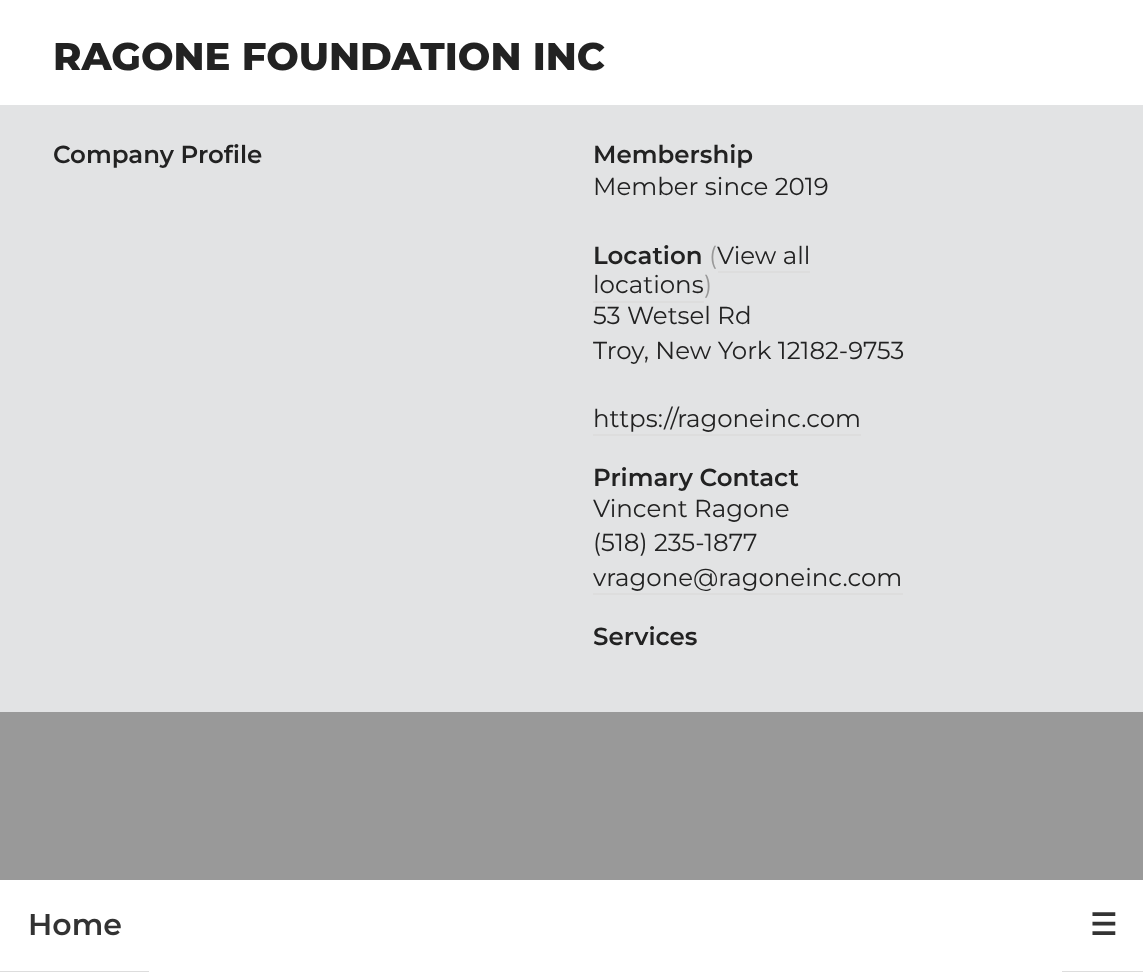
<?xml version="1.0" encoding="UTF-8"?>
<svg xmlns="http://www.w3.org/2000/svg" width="1143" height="972">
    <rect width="100%" height="100%" fill="#999999"/>
    <rect x="0" y="0" width="1143" height="105" fill="#FFFFFF"/>
    <text x="53" y="70" font-family="Montserrat" font-size="38.5" font-weight="800" fill="#222222">RAGONE FOUNDATION INC</text>
    <rect x="0" y="105" width="1143" height="607" fill="#E2E3E4"/>
    <text x="53" y="163" font-family="Montserrat" font-size="24.5" font-weight="600" fill="#222222">Company Profile</text>
    <text x="593" y="163" font-family="Montserrat" font-size="24.5" font-weight="600" fill="#222222">Membership</text>
    <text x="593" y="195" font-family="Montserrat" font-size="24.5" fill="#222222">Member since 2019</text>
    <text x="593" y="264" font-family="Montserrat" font-size="24.5" font-weight="600" fill="#222222">Location</text>
    <text x="709" y="264" font-family="Montserrat" font-size="24.5" fill="#999999">(</text>
    <rect x="718" y="271" width="92" height="2" fill="#DDDDDD"/>
    <text x="717" y="264" font-family="Montserrat" font-size="24.5" fill="#222222">View all</text>
    <text x="593" y="293" font-family="Montserrat" font-size="24.5" fill="#222222">locations</text>
    <text x="704" y="293" font-family="Montserrat" font-size="24.5" fill="#999999">)</text>
    <rect x="593" y="301" width="111" height="2" fill="#DDDDDD"/>
    <text font-family="Montserrat" font-size="24.5" fill="#222222">
        <tspan x="593" y="324">53 Wetsel Rd</tspan>
        <tspan x="593" y="359">Troy, New York 12182-9753</tspan>
    </text>
    <text x="593" y="427" font-family="Montserrat" font-size="24.5" fill="#222222">https://ragoneinc.com</text>
    <rect x="593" y="434" width="268" height="2" fill="#DDDDDD"/>
    <text x="593" y="486" font-family="Montserrat" font-size="24.5" font-weight="600" fill="#222222">Primary Contact</text>
    <text font-family="Montserrat" font-size="24.5" fill="#222222">
        <tspan x="593" y="517">Vincent Ragone</tspan>
        <tspan x="593" y="551">(518) 235-1877</tspan>
        <tspan x="593" y="586">vragone@ragoneinc.com</tspan>
    </text>
    <rect x="593" y="593" width="310" height="2" fill="#DDDDDD"/>
    <text x="593" y="645" font-family="Montserrat" font-size="24.5" font-weight="600" fill="#222222">Services</text>
    <rect x="0" y="880" width="1143" height="92" fill="#FFFFFF"/>
    <rect x="0" y="971" width="149" height="1" fill="#DDDDDD"/>
    <text x="28" y="935" font-family="Montserrat" font-size="30" font-weight="600" fill="#333333">Home</text>
    <rect x="1062" y="971" width="81" height="1" fill="#DDDDDD"/>
    <text x="1090" y="935" font-family="DejaVu Sans" font-size="30" font-weight="700" fill="#333333">☰</text>
</svg>
